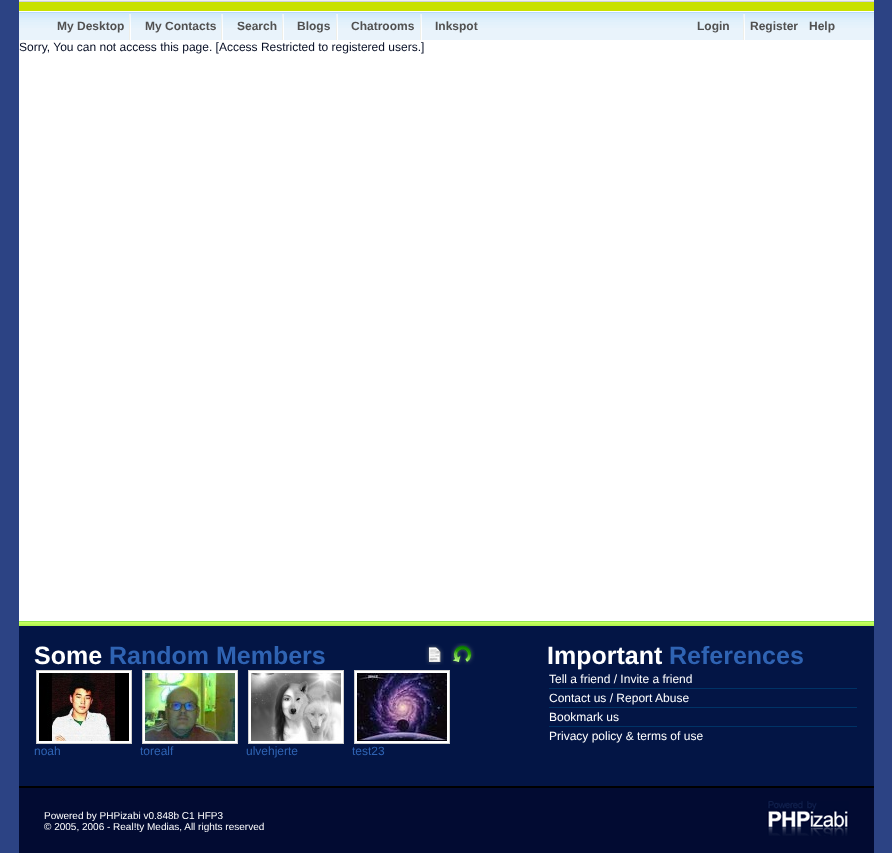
<?xml version="1.0" encoding="UTF-8"?>
<svg xmlns="http://www.w3.org/2000/svg" width="892" height="853">
    <rect width="100%" height="100%" fill="#2C4384"/>
    <image x="19" y="0" width="855" height="40" href="img_01.png"/>
    <text x="57" y="30" font-family="Liberation Sans" font-size="12" font-weight="700" fill="#515151">My Desktop</text>
    <image x="129" y="14" width="2" height="26" href="img_02.png"/>
    <text x="145" y="30" font-family="Liberation Sans" font-size="12" font-weight="700" fill="#515151">My Contacts</text>
    <image x="221" y="14" width="2" height="26" href="img_02.png"/>
    <text x="237" y="30" font-family="Liberation Sans" font-size="12" font-weight="700" fill="#515151">Search</text>
    <image x="282" y="14" width="2" height="26" href="img_02.png"/>
    <text x="297" y="30" font-family="Liberation Sans" font-size="12" font-weight="700" fill="#515151">Blogs</text>
    <image x="336" y="14" width="2" height="26" href="img_02.png"/>
    <text x="351" y="30" font-family="Liberation Sans" font-size="12" font-weight="700" fill="#515151">Chatrooms</text>
    <image x="420" y="14" width="2" height="26" href="img_02.png"/>
    <text x="435" y="30" font-family="Liberation Sans" font-size="12" font-weight="700" fill="#515151">Inkspot</text>
    <text x="697" y="30" font-family="Liberation Sans" font-size="12" font-weight="700" fill="#515151">Login</text>
    <image x="743" y="14" width="2" height="26" href="img_02.png"/>
    <text x="750" y="30" font-family="Liberation Sans" font-size="12" font-weight="700" fill="#515151">Register</text>
    <text x="809" y="30" font-family="Liberation Sans" font-size="12" font-weight="700" fill="#515151">Help</text>
    <rect x="19" y="40" width="855" height="581" fill="#FFFFFF"/>
    <text x="19" y="51" font-family="Liberation Sans" font-size="12" fill="#050D24">Sorry, You can not access this page. [Access Restricted to registered users.]</text>
    <image x="19" y="621" width="855" height="5" href="img_03.png"/>
    <rect x="19" y="626" width="855" height="160" fill="#031545"/>
    <text x="34" y="664" font-family="Liberation Sans" font-size="25" font-weight="700" fill="#FFFFFF">Some</text>
    <text x="109" y="664" font-family="Liberation Sans" font-size="25" font-weight="700" fill="#2F63B3">Random Members</text>
    <image x="425" y="644" width="19" height="21" href="img_04.png"/>
    <image x="451" y="643" width="24" height="22" href="img_05.png"/>
    <rect x="36.5" y="670.5" width="95" height="73" fill="#FFFFFF" stroke="#CECECE"/>
    <image x="39" y="673" width="90" height="68" href="img_06.png"/>
    <text x="34" y="755" font-family="Liberation Sans" font-size="12" fill="#2F63B3">noah</text>
    <rect x="142.5" y="670.5" width="95" height="73" fill="#FFFFFF" stroke="#CECECE"/>
    <image x="145" y="673" width="90" height="68" href="img_07.png"/>
    <text x="140" y="755" font-family="Liberation Sans" font-size="12" fill="#2F63B3">torealf</text>
    <rect x="248.5" y="670.5" width="95" height="73" fill="#FFFFFF" stroke="#CECECE"/>
    <image x="251" y="673" width="90" height="68" href="img_08.png"/>
    <text x="246" y="755" font-family="Liberation Sans" font-size="12" fill="#2F63B3">ulvehjerte</text>
    <rect x="354.5" y="670.5" width="95" height="73" fill="#FFFFFF" stroke="#CECECE"/>
    <image x="357" y="673" width="90" height="68" href="img_09.png"/>
    <text x="352" y="755" font-family="Liberation Sans" font-size="12" fill="#2F63B3">test23</text>
    <text x="547" y="664" font-family="Liberation Sans" font-size="25" font-weight="700" fill="#FFFFFF">Important</text>
    <text x="669" y="664" font-family="Liberation Sans" font-size="25" font-weight="700" fill="#2F63B3">References</text>
    <text x="549" y="683" font-family="Liberation Sans" font-size="12" fill="#FFFFFF">Tell a friend / Invite a friend</text>
    <rect x="549" y="688" width="308" height="1" fill="#003366"/>
    <text x="549" y="702" font-family="Liberation Sans" font-size="12" fill="#FFFFFF">Contact us / Report Abuse</text>
    <rect x="549" y="707" width="308" height="1" fill="#003366"/>
    <text x="549" y="721" font-family="Liberation Sans" font-size="12" fill="#FFFFFF">Bookmark us</text>
    <rect x="549" y="726" width="308" height="1" fill="#003366"/>
    <text x="549" y="740" font-family="Liberation Sans" font-size="12" fill="#FFFFFF">Privacy policy &amp; terms of use</text>
    <rect x="19" y="786" width="855" height="2" fill="#000000"/>
    <rect x="19" y="788" width="855" height="65" fill="#020B32"/>
    <text font-family="Liberation Sans" font-size="10" fill="#FFFFFF">
        <tspan x="44" y="819">Powered by PHPizabi v0.848b C1 HFP3</tspan>
        <tspan x="44" y="830">© 2005, 2006 - Real!ty Medias, All rights reserved</tspan>
    </text>
    <image x="767" y="801" width="82" height="35" href="img_10.png"/>
</svg>
